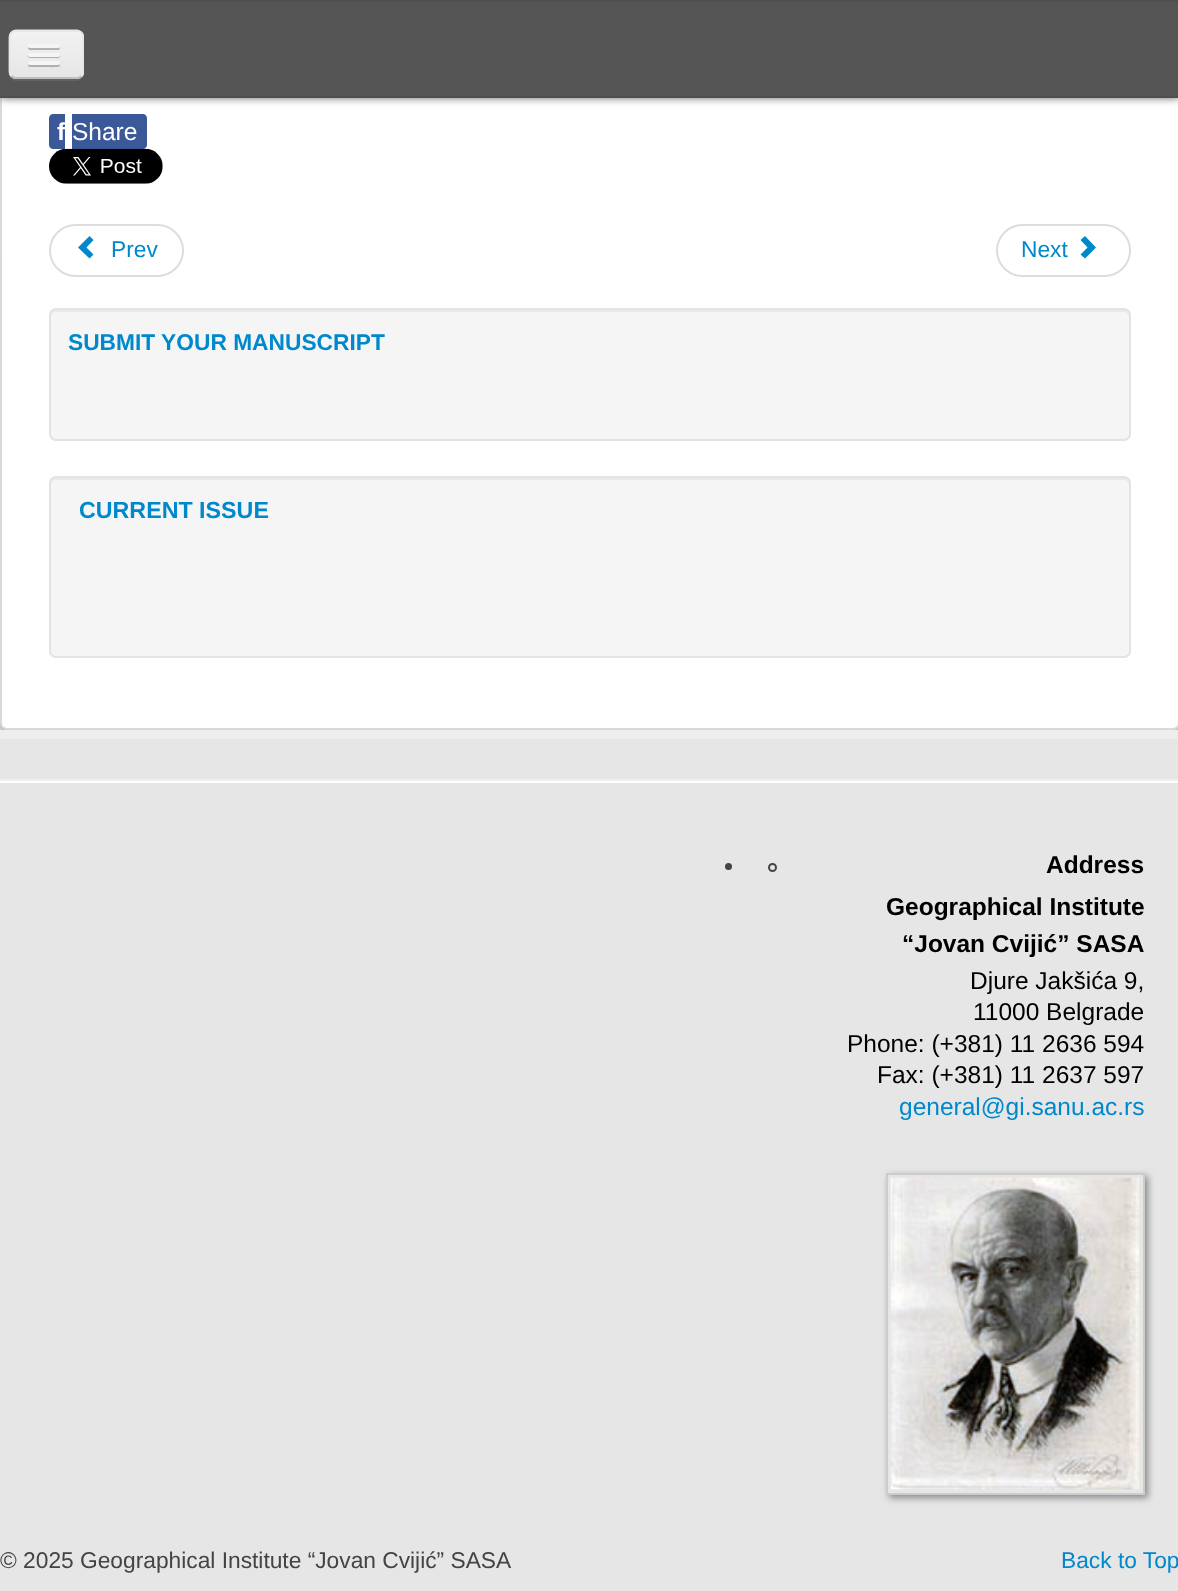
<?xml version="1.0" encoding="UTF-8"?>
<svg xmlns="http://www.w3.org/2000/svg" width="1178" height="1591">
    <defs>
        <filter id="blur1" x="-50%" y="-200%" width="200%" height="500%"><feGaussianBlur stdDeviation="4.5"/></filter>
        <clipPath id="clip1"><rect x="9" y="30" width="75" height="49" rx="7"/></clipPath>
        <linearGradient id="g1" gradientUnits="userSpaceOnUse" x1="46" y1="32" x2="46" y2="77"><stop offset="0" stop-color="#F2F2F2"/><stop offset="1" stop-color="#E6E6E6"/></linearGradient>
        <clipPath id="clip2"><path d="M 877 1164 H 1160 V 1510 H 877 Z M 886 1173 H 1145 V 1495 H 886 Z" clip-rule="evenodd"/></clipPath>
        <filter id="blur2" x="-50%" y="-200%" width="200%" height="500%"><feGaussianBlur stdDeviation="3.5"/></filter>
    </defs>
    <rect width="100%" height="100%" fill="#FFFFFF"/>
    <image x="0" y="723" width="1178" height="7" href="img_01.png"/>
    <rect x="0" y="-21" width="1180" height="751" rx="7" fill="#666666" filter="url(#blur1)"/>
    <rect x="0" y="-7" width="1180" height="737" rx="7" fill="#FFFFFF"/>
    <rect x="1" y="-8" width="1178" height="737" rx="6" fill="none" stroke="#000000" stroke-opacity="0.15" stroke-width="2"/>
    <rect x="0" y="0" width="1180" height="98" fill="#666666" filter="url(#blur1)"/>
    <rect x="0" y="2" width="1178" height="94" fill="#555555"/>
    <rect x="0" y="0" width="1178" height="2" fill="#4F4F4F"/>
    <rect x="0" y="96" width="1178" height="2" fill="#4F4F4F"/>
    <path d="M 9 74 C 9 83 20 81 26 81 H 67 C 76 81 84 83 84 72 C 84 76 81 79 77 79 H 16 C 13 79 10 77 9 74 Z" fill="#626262"/>
    <rect x="9" y="30" width="75" height="49" rx="7" fill="#EDEDED"/>
    <g clip-path="url(#clip1)">
        <rect x="9" y="32" width="75" height="45" fill="url(#g1)"/>
    </g>
    <path d="M 81.5 76 C 80 77 78.5 78 77 78 H 16 C 14 78 12.5 77 11.5 76" fill="none" stroke="#BFBFBF" stroke-width="1.8"/>
    <path d="M 11.5 76 C 10.5 75 9.5 73.5 9.5 72 V 37 C 9.5 35 10.5 33.5 11.5 32.5 C 12.5 31.5 14 30.5 16 30.5 H 77 C 78.5 30.5 80 31.5 81.5 32.5 C 82.5 33.5 83 35 83 37 V 72 C 83 73.5 82.5 75 81.5 76" fill="none" stroke="#E6E6E6" stroke-width="1.8"/>
    <path d="M 28.5 46.5 C 28 47 28 48 28 48.5 C 28.5 51 33.5 50 34.5 50 H 58 C 60 50 60.5 47.5 59 46.5 L 58 47 H 29.5 Z" fill="#B2B2B2"/>
    <rect x="28" y="44" width="32" height="4" rx="2" fill="#F5F5F5"/>
    <path d="M 28 55 C 26.5 59 34 58 34.5 58 H 53.5 C 54.5 58 59.5 59 60 56.5 C 60 56 60 55 59.5 54.5 C 59.5 55.5 58.5 56 58 56 H 30 C 29 56 28.5 55.5 28 55 Z" fill="#B0B0B0"/>
    <rect x="28" y="53" width="32" height="4" rx="2" fill="#F5F5F5"/>
    <path d="M 28.5 64 C 26 68 34 67 34.5 67 H 44 C 46.5 67 58 67.5 59.5 66.5 C 60 65.5 60 64.5 59.5 63.5 L 58.5 64.5 H 29.5 Z" fill="#AFAFAF"/>
    <rect x="28" y="61" width="32" height="4" rx="2" fill="#F5F5F5"/>
    <path d="M 53 114 H 65 V 149 H 53 C 51 149 49 147 49 145 V 118 C 49 116 51 114 53 114 Z" fill="#3B5998"/>
    <text x="57" y="140" font-family="Liberation Sans" font-size="24.5" font-weight="700" fill="#FFFFFF">f</text>
    <path d="M 72 114 H 143 C 145 114 147 116 147 118 V 145 C 147 147 145 149 143 149 H 72 Z" fill="#3B5998"/>
    <text x="72" y="140" font-family="Liberation Sans" font-size="24.5" fill="#FFFFFF">Share</text>
    <image x="49" y="148" width="114" height="36" href="img_02.png"/>
    <rect x="50" y="225" width="133" height="51" rx="25.5" fill="none" stroke="#DDDDDD" stroke-width="2"/>
    <path d="M 89.5 258.5 L 78 247.5 L 89.5 236 L 93.5 240 L 86.5 247.5 L 93.5 254.5 Z" fill="#0088CC"/>
    <text x="111" y="257" font-family="Liberation Sans" font-size="22.75" fill="#0088CC">Prev</text>
    <rect x="997" y="225" width="133" height="51" rx="25.5" fill="none" stroke="#DDDDDD" stroke-width="2"/>
    <text x="1021" y="257" font-family="Liberation Sans" font-size="22.75" fill="#0088CC">Next</text>
    <path d="M 1085 236 L 1096 247.5 L 1085 258.5 L 1080.5 254.5 L 1087.5 247.5 L 1080.5 240 Z" fill="#0088CC"/>
    <rect x="49" y="308" width="1082" height="133" rx="7" fill="#F5F5F5"/>
    <path d="M 56 312 H 1124 C 1126 312 1129 314 1129 317 V 315 C 1129 312 1127 310 1124 310 H 56 C 53 310 51 312 51 315 V 317 C 51 314 53 312 56 312 Z" fill="#E9E9E9"/>
    <rect x="50" y="309" width="1080" height="131" rx="6" fill="none" stroke="#E3E3E3" stroke-width="2"/>
    <text x="68" y="350" font-family="Liberation Sans" font-size="22.75" font-weight="700" fill="#0088CC">SUBMIT YOUR MANUSCRIPT</text>
    <rect x="49" y="476" width="1082" height="182" rx="7" fill="#F5F5F5"/>
    <path d="M 56 480 H 1124 C 1126 480 1129 482 1129 485 V 483 C 1129 480 1127 478 1124 478 H 56 C 53 478 51 480 51 483 V 485 C 51 482 53 480 56 480 Z" fill="#E9E9E9"/>
    <rect x="50" y="477" width="1080" height="180" rx="6" fill="none" stroke="#E3E3E3" stroke-width="2"/>
    <text x="79" y="518" font-family="Liberation Sans" font-size="23.25" font-weight="700" fill="#0088CC">CURRENT ISSUE</text>
    <rect x="0" y="739" width="1178" height="852" fill="#E6E6E6"/>
    <rect x="0" y="730" width="1178" height="9" fill="#EEEEEE"/>
    <rect x="0" y="779" width="1178" height="2" fill="#EEEEEE"/>
    <rect x="0" y="781" width="1178" height="2" fill="#FFFFFF"/>
    <circle cx="728.5" cy="866.5" r="3.5" fill="#444444"/>
    <circle cx="772.5" cy="867.5" r="3.5" fill="none" stroke="#444444" stroke-width="2"/>
    <text x="1046" y="873" font-family="Liberation Sans" font-size="24.5" font-weight="700" fill="#000000">Address</text>
    <text x="886" y="915" font-family="Liberation Sans" font-size="24.5" font-weight="700" fill="#000000">Geographical Institute</text>
    <text x="902" y="952" font-family="Liberation Sans" font-size="24.5" font-weight="700" fill="#000000">“Jovan Cvijić” SASA</text>
    <text x="970" y="989" font-family="Liberation Sans" font-size="24.5" fill="#000000">Djure Jakšića 9,</text>
    <text x="973" y="1020" font-family="Liberation Sans" font-size="24.5" fill="#000000">11000 Belgrade</text>
    <text x="847" y="1052" font-family="Liberation Sans" font-size="24.5" fill="#000000">Phone: (+381) 11 2636 594</text>
    <text x="877" y="1083" font-family="Liberation Sans" font-size="24.5" fill="#000000">Fax: (+381) 11 2637 597</text>
    <text x="899" y="1115" font-family="Liberation Sans" font-size="24.5" fill="#0088CC">general@gi.sanu.ac.rs</text>
    <g clip-path="url(#clip2)">
        <rect x="889" y="1176" width="259" height="322" fill="#888888" filter="url(#blur2)"/>
    </g>
    <rect x="887" y="1174" width="257" height="320" fill="none" stroke="#CCCCCC" stroke-width="2"/>
    <image x="890" y="1177" width="250" height="313" href="img_03.png"/>
    <text x="0" y="1568" font-family="Liberation Sans" font-size="22.75" fill="#444444">© 2025 Geographical Institute “Jovan Cvijić” SASA</text>
    <text x="1061" y="1568" font-family="Liberation Sans" font-size="22.75" fill="#0088CC">Back to Top</text>
</svg>
